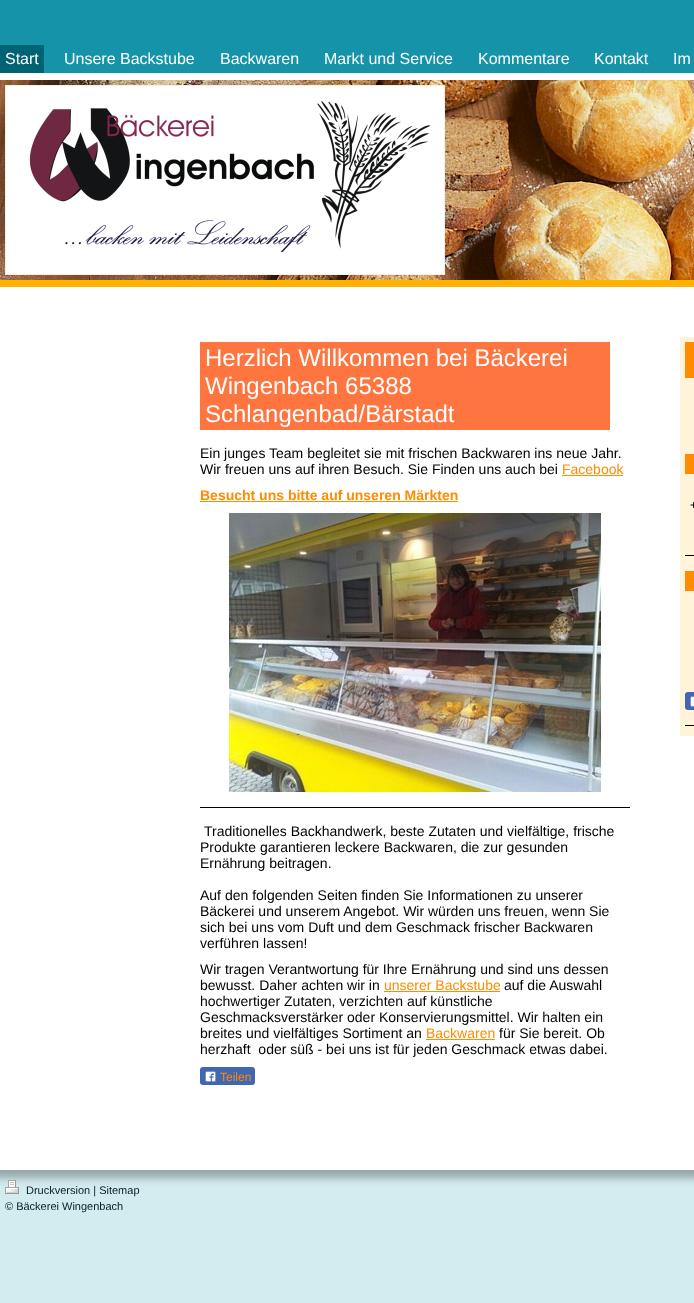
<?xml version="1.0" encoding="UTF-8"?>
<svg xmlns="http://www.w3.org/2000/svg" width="694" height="1303">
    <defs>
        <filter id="blur1" x="-50%" y="-200%" width="200%" height="500%"><feGaussianBlur stdDeviation="4"/></filter>
    </defs>
    <rect width="100%" height="100%" fill="#D3ECF0"/>
    <rect x="-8" y="72" width="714" height="1106" fill="#000000" fill-opacity="0.3" filter="url(#blur1)"/>
    <rect x="0" y="0" width="694" height="73" fill="#1593A9"/>
    <rect x="0" y="73" width="694" height="7" fill="#FFFFFF"/>
    <rect x="0" y="45" width="44" height="28" fill="#006373"/>
    <text x="5" y="64" font-family="Liberation Sans" font-size="16" fill="#FFFFFF">Start</text>
    <text x="64" y="64" font-family="Liberation Sans" font-size="16" fill="#FFFFFF">Unsere Backstube</text>
    <text x="220" y="64" font-family="Liberation Sans" font-size="16" fill="#FFFFFF">Backwaren</text>
    <text x="324" y="64" font-family="Liberation Sans" font-size="16" fill="#FFFFFF">Markt und Service</text>
    <text x="478" y="64" font-family="Liberation Sans" font-size="16" fill="#FFFFFF">Kommentare</text>
    <text x="594" y="64" font-family="Liberation Sans" font-size="16" fill="#FFFFFF">Kontakt</text>
    <text x="673" y="64" font-family="Liberation Sans" font-size="16" fill="#FFFFFF">Im</text>
    <rect x="0" y="287" width="694" height="883" fill="#FFFFFF"/>
    <rect x="0" y="280" width="694" height="7" fill="#FFB300"/>
    <image x="0" y="80" width="694" height="200" href="img_01.png"/>
    <image x="5" y="85" width="440" height="190" href="img_02.png"/>
    <rect x="200" y="342" width="410" height="88" fill="#FF753F"/>
    <text font-family="Liberation Sans" font-size="24" fill="#FFFFFF">
        <tspan x="205" y="366">Herzlich Willkommen bei Bäckerei</tspan>
        <tspan x="205" y="394">Wingenbach 65388</tspan>
        <tspan x="205" y="422">Schlangenbad/Bärstadt</tspan>
    </text>
    <text font-family="Liberation Sans" font-size="14" fill="#000000">
        <tspan x="200" y="458">Ein junges Team begleitet sie mit frischen Backwaren ins neue Jahr.</tspan>
        <tspan x="200" y="474">Wir freuen uns auf ihren Besuch. Sie Finden uns auch bei</tspan>
    </text>
    <text x="562" y="474" font-family="Liberation Sans" font-size="14" fill="#FF8B00">Facebook</text>
    <rect x="562" y="475" width="61" height="1" fill="#FF8B00"/>
    <text x="200" y="500" font-family="Liberation Sans" font-size="14" font-weight="700" fill="#FF8B00">Besucht uns bitte auf unseren Märkten</text>
    <rect x="200" y="501" width="258" height="1" fill="#FF8B00"/>
    <image x="229" y="513" width="372" height="279" href="img_03.png"/>
    <rect x="200" y="807" width="430" height="1" fill="#000000"/>
    <text x="204" y="836" font-family="Liberation Sans" font-size="14" fill="#000000">Traditionelles Backhandwerk, beste Zutaten und vielfältige, frische</text>
    <text font-family="Liberation Sans" font-size="14" fill="#000000">
        <tspan x="200" y="852">Produkte garantieren leckere Backwaren, die zur gesunden</tspan>
        <tspan x="200" y="868">Ernährung beitragen.</tspan>
    </text>
    <text font-family="Liberation Sans" font-size="14" fill="#000000">
        <tspan x="200" y="900">Auf den folgenden Seiten finden Sie Informationen zu unserer</tspan>
        <tspan x="200" y="916">Bäckerei und unserem Angebot. Wir würden uns freuen, wenn Sie</tspan>
        <tspan x="200" y="932">sich bei uns vom Duft und dem Geschmack frischer Backwaren</tspan>
        <tspan x="200" y="948">verführen lassen!</tspan>
        <tspan x="200" y="974">Wir tragen Verantwortung für Ihre Ernährung und sind uns dessen</tspan>
        <tspan x="200" y="990">bewusst. Daher achten wir in</tspan>
    </text>
    <text x="384" y="990" font-family="Liberation Sans" font-size="14" fill="#FF8B00">unserer Backstube</text>
    <rect x="384" y="991" width="116" height="1" fill="#FF8B00"/>
    <text x="504" y="990" font-family="Liberation Sans" font-size="14" fill="#000000">auf die Auswahl</text>
    <text font-family="Liberation Sans" font-size="14" fill="#000000">
        <tspan x="200" y="1006">hochwertiger Zutaten, verzichten auf künstliche</tspan>
        <tspan x="200" y="1022">Geschmacksverstärker oder Konservierungsmittel. Wir halten ein</tspan>
        <tspan x="200" y="1038">breites und vielfältiges Sortiment an</tspan>
    </text>
    <text x="426" y="1038" font-family="Liberation Sans" font-size="14" fill="#FF8B00">Backwaren</text>
    <rect x="426" y="1039" width="69" height="1" fill="#FF8B00"/>
    <text x="499" y="1038" font-family="Liberation Sans" font-size="14" fill="#000000">für Sie bereit. Ob</text>
    <text x="200" y="1054" font-family="Liberation Sans" font-size="14" fill="#000000" xml:space="preserve">herzhaft  oder süß - bei uns ist für jeden Geschmack etwas dabei.</text>
    <rect x="200" y="1067" width="55" height="18" rx="3" fill="#4267B2"/>
    <image x="205" y="1071" width="11" height="11" href="img_04.png"/>
    <text x="220" y="1081" font-family="Liberation Sans" font-size="12" fill="#FF8B00">Teilen</text>
    <rect x="680" y="337" width="14" height="399" fill="#FFF4D9"/>
    <rect x="685" y="342" width="9" height="36" fill="#FF8B00"/>
    <rect x="685" y="454" width="9" height="20" fill="#FF8B00"/>
    <text x="690" y="509" font-family="Liberation Sans" font-size="12" fill="#000000">+</text>
    <rect x="685" y="555" width="9" height="1" fill="#000000"/>
    <rect x="685" y="571" width="9" height="20" fill="#FF8B00"/>
    <rect x="685" y="692" width="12" height="18" rx="3" fill="#4267B2"/>
    <image x="690" y="696" width="4" height="11" href="img_05.png"/>
    <rect x="685" y="725" width="9" height="1" fill="#000000"/>
    <image x="5" y="1180" width="14" height="14" href="img_06.png"/>
    <text x="26" y="1194" font-family="Liberation Sans" font-size="11" fill="#052126">Druckversion | Sitemap</text>
    <text x="5" y="1210" font-family="Liberation Sans" font-size="11" fill="#052126">© Bäckerei Wingenbach</text>
</svg>
